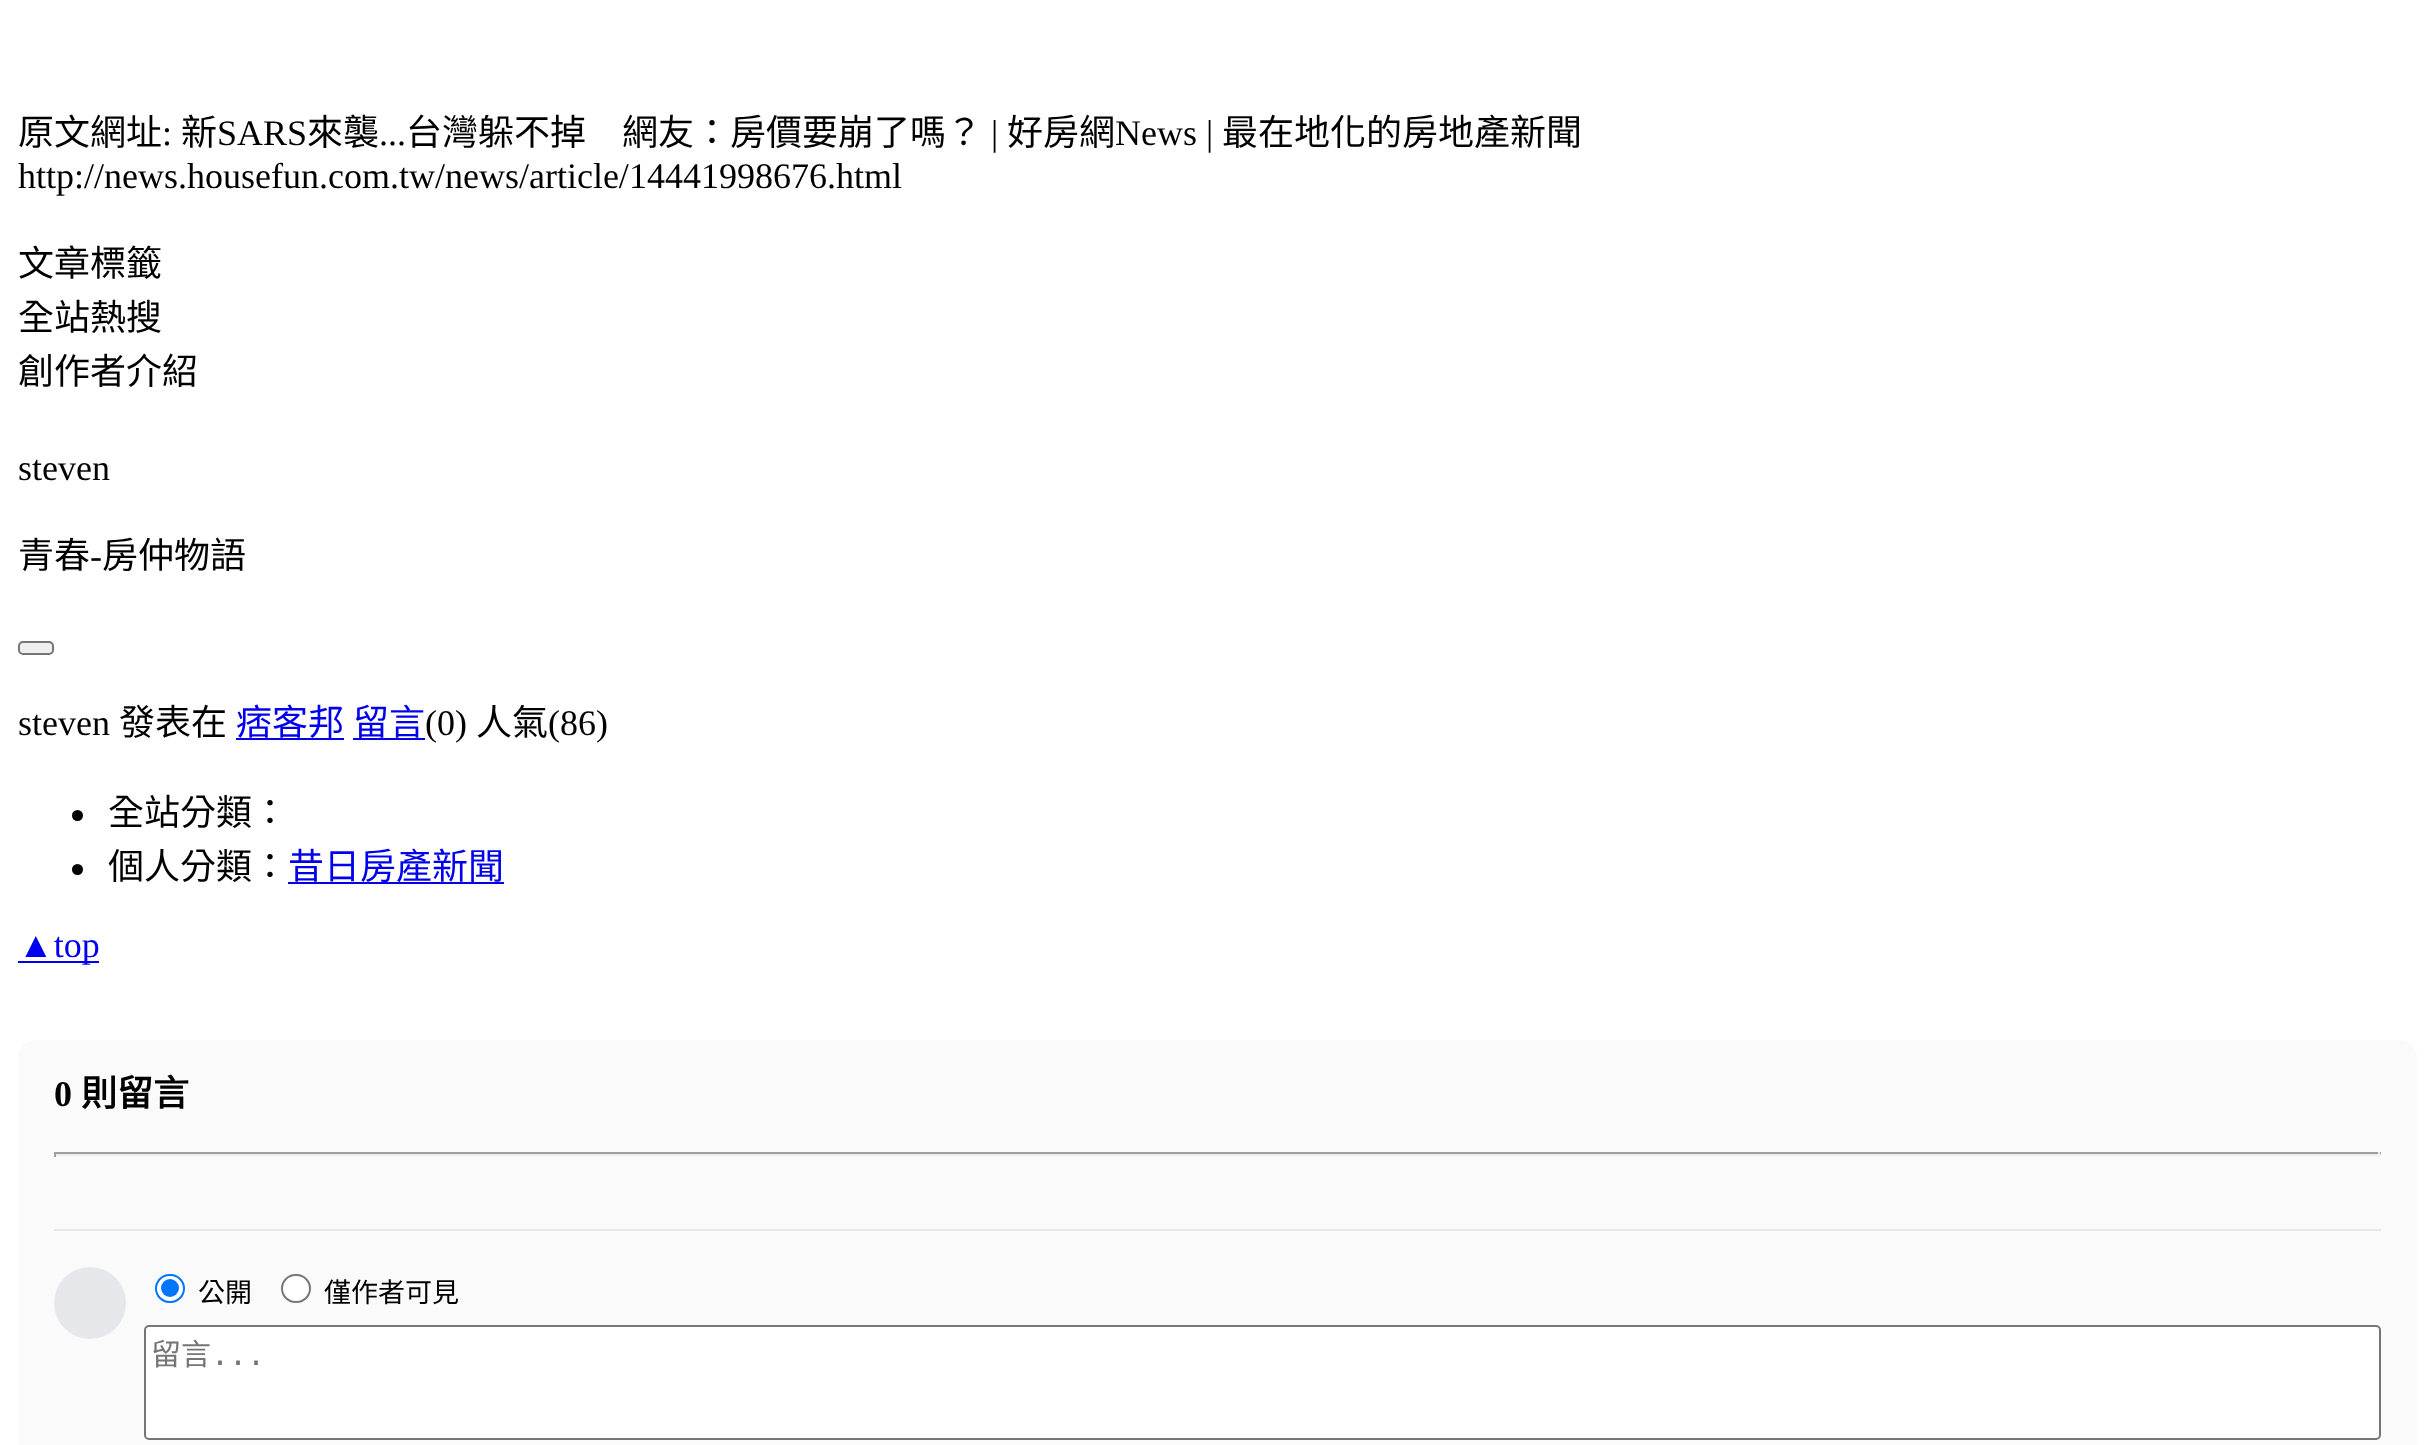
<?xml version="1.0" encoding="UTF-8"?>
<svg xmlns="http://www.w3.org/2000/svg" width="2434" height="1445">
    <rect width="100%" height="100%" fill="#FFFFFF"/>
    <text x="18" y="145" font-family="Noto Sans CJK TC" font-size="36" fill="#000000">原文網址</text>
    <text x="162" y="145" font-family="Liberation Serif" font-size="36" fill="#000000">:</text>
    <text x="181" y="145" font-family="Noto Sans CJK TC" font-size="36" fill="#000000">新</text>
    <text x="217" y="145" font-family="Liberation Serif" font-size="36" fill="#000000">SARS</text>
    <text x="307" y="145" font-family="Noto Sans CJK TC" font-size="36" fill="#000000">來襲</text>
    <text x="379" y="145" font-family="Liberation Serif" font-size="36" fill="#000000">...</text>
    <text x="406" y="145" font-family="Noto Sans CJK TC" font-size="36" fill="#000000">台灣躲不掉　網友：房價要崩了嗎？</text>
    <text x="991" y="145" font-family="Liberation Serif" font-size="36" fill="#000000">|</text>
    <text x="1007" y="145" font-family="Noto Sans CJK TC" font-size="36" fill="#000000">好房網</text>
    <text x="1115" y="145" font-family="Liberation Serif" font-size="36" fill="#000000">News |</text>
    <text x="1222" y="145" font-family="Noto Sans CJK TC" font-size="36" fill="#000000">最在地化的房地產新聞</text>
    <text x="18" y="188" font-family="Liberation Serif" font-size="36" fill="#000000">http://news.housefun.com.tw/news/article/14441998676.html</text>
    <text font-family="Noto Sans CJK TC" font-size="36" fill="#000000">
        <tspan x="18" y="276">文章標籤</tspan>
        <tspan x="18" y="330">全站熱搜</tspan>
        <tspan x="18" y="384">創作者介紹</tspan>
    </text>
    <text x="18" y="480" font-family="Liberation Serif" font-size="36" fill="#000000">steven</text>
    <text x="18" y="568" font-family="Noto Sans CJK TC" font-size="36" fill="#000000">青春</text>
    <text x="90" y="568" font-family="Liberation Serif" font-size="36" fill="#000000">-</text>
    <text x="102" y="568" font-family="Noto Sans CJK TC" font-size="36" fill="#000000">房仲物語</text>
    <rect x="19" y="642" width="34" height="12" rx="4" fill="#EFEFEF" stroke="#767676" stroke-width="2"/>
    <text x="18" y="735" font-family="Liberation Serif" font-size="36" fill="#000000">steven</text>
    <text x="119" y="735" font-family="Noto Sans CJK TC" font-size="36" fill="#000000">發表在</text>
    <rect x="236" y="738" width="108" height="2" fill="#0000EE"/>
    <text x="236" y="735" font-family="Noto Sans CJK TC" font-size="36" fill="#0000EE">痞客邦</text>
    <text x="353" y="735" font-family="Noto Sans CJK TC" font-size="36" fill="#0000EE">留言</text>
    <rect x="353" y="738" width="72" height="2" fill="#0000EE"/>
    <text x="425" y="735" font-family="Liberation Serif" font-size="36" fill="#000000">(0)</text>
    <text x="476" y="735" font-family="Noto Sans CJK TC" font-size="36" fill="#000000">人氣</text>
    <text x="548" y="735" font-family="Liberation Serif" font-size="36" fill="#000000">(86)</text>
    <circle cx="77.5" cy="815.5" r="5.5" fill="#000000"/>
    <text x="108" y="825" font-family="Noto Sans CJK TC" font-size="36" fill="#000000">全站分類：</text>
    <circle cx="77.5" cy="869.5" r="5.5" fill="#000000"/>
    <text x="108" y="879" font-family="Noto Sans CJK TC" font-size="36" fill="#000000">個人分類：</text>
    <rect x="288" y="882" width="216" height="2" fill="#0000EE"/>
    <text x="288" y="879" font-family="Noto Sans CJK TC" font-size="36" fill="#0000EE">昔日房產新聞</text>
    <rect x="18" y="961" width="81" height="2" fill="#0000EE"/>
    <text x="18" y="957" font-family="Liberation Serif" font-size="36" fill="#0000EE">▲top</text>
    <rect x="18" y="1040" width="2399" height="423" rx="18" fill="#FAFAFA"/>
    <text x="54" y="1106" font-family="Liberation Serif" font-size="36" font-weight="700" fill="#000000">0</text>
    <text x="81" y="1106" font-family="Noto Sans CJK TC" font-size="36" font-weight="700" fill="#000000">則留言</text>
    <rect x="54" y="1152" width="2327" height="2" fill="#9F9F9F"/>
    <rect x="2378" y="1152" width="2" height="5" fill="#EEEEEE"/>
    <rect x="54" y="1154" width="2327" height="2" fill="#EEEEEE"/>
    <rect x="54" y="1152" width="2" height="5" fill="#9F9F9F"/>
    <rect x="54" y="1229" width="2327" height="2" fill="#E5E7EB"/>
    <circle cx="90" cy="1303" r="36" fill="#E5E7EB"/>
    <rect x="156" y="1275" width="28" height="27" rx="13.5" fill="#FFFFFF" stroke="#0075FF" stroke-width="2"/>
    <circle cx="170" cy="1288" r="9" fill="#0075FF"/>
    <text x="198" y="1302" font-family="Noto Sans CJK TC" font-size="27" fill="#000000">公開</text>
    <rect x="282" y="1275" width="28" height="27" rx="13.5" fill="#FFFFFF" stroke="#767676" stroke-width="2"/>
    <text x="324" y="1302" font-family="Noto Sans CJK TC" font-size="27" fill="#000000">僅作者可見</text>
    <rect x="145" y="1326" width="2235" height="113" rx="4" fill="#FFFFFF" stroke="#767676" stroke-width="2"/>
    <text x="151" y="1365" font-family="Noto Sans CJK TC" font-size="30" fill="#757575">留言</text>
    <text x="211" y="1365" font-family="DejaVu Sans Mono" font-size="30" fill="#757575">...</text>
</svg>
